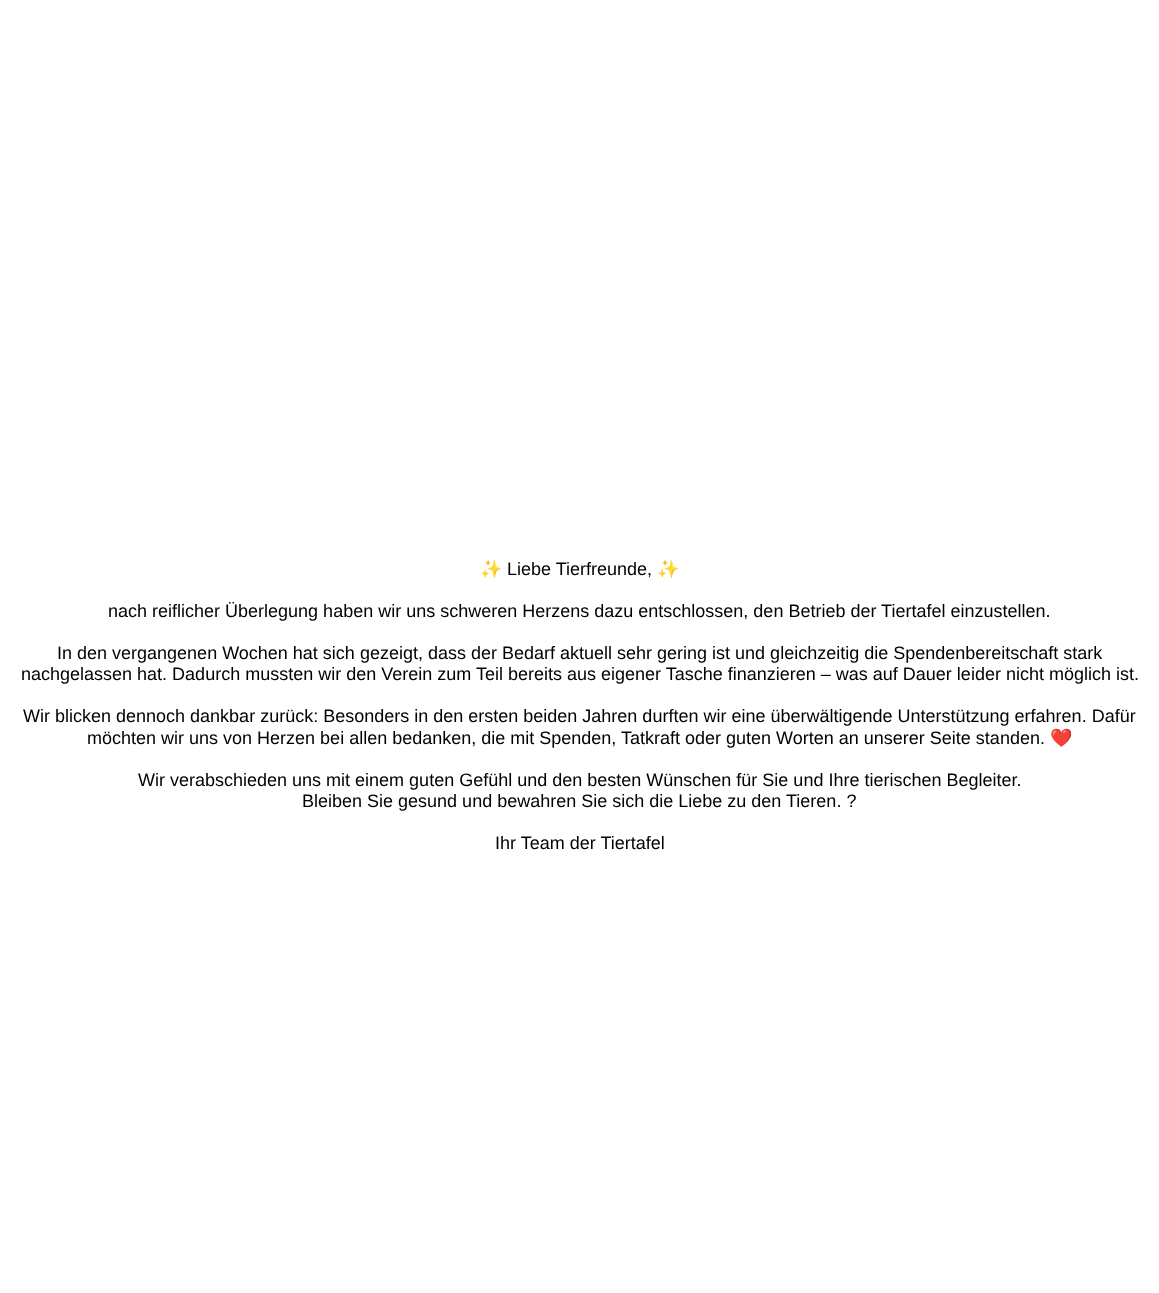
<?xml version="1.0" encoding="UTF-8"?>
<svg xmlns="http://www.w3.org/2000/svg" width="1159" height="1293">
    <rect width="100%" height="100%" fill="#FFFFFF"/>
    <text x="480" y="575" font-family="Noto Color Emoji" font-size="18" fill="#000000">✨</text>
    <text x="507" y="575" font-family="Liberation Sans" font-size="18" fill="#000000">Liebe Tierfreunde,</text>
    <text x="657" y="575" font-family="Noto Color Emoji" font-size="18" fill="#000000">✨</text>
    <text x="108" y="617" font-family="Liberation Sans" font-size="18" fill="#000000">nach reiflicher Überlegung haben wir uns schweren Herzens dazu entschlossen, den Betrieb der Tiertafel einzustellen.</text>
    <text x="57" y="659" font-family="Liberation Sans" font-size="18" fill="#000000">In den vergangenen Wochen hat sich gezeigt, dass der Bedarf aktuell sehr gering ist und gleichzeitig die Spendenbereitschaft stark</text>
    <text x="21" y="680" font-family="Liberation Sans" font-size="18" fill="#000000">nachgelassen hat. Dadurch mussten wir den Verein zum Teil bereits aus eigener Tasche finanzieren – was auf Dauer leider nicht möglich ist.</text>
    <text x="23" y="722" font-family="Liberation Sans" font-size="18" fill="#000000">Wir blicken dennoch dankbar zurück: Besonders in den ersten beiden Jahren durften wir eine überwältigende Unterstützung erfahren. Dafür</text>
    <text x="87" y="744" font-family="Liberation Sans" font-size="18" fill="#000000">möchten wir uns von Herzen bei allen bedanken, die mit Spenden, Tatkraft oder guten Worten an unserer Seite standen.</text>
    <text x="1050" y="744" font-family="Noto Color Emoji" font-size="18" fill="#000000">❤️</text>
    <text x="138" y="786" font-family="Liberation Sans" font-size="18" fill="#000000">Wir verabschieden uns mit einem guten Gefühl und den besten Wünschen für Sie und Ihre tierischen Begleiter.</text>
    <text x="302" y="807" font-family="Liberation Sans" font-size="18" fill="#000000">Bleiben Sie gesund und bewahren Sie sich die Liebe zu den Tieren. ?</text>
    <text x="495" y="849" font-family="Liberation Sans" font-size="18" fill="#000000">Ihr Team der Tiertafel</text>
</svg>
